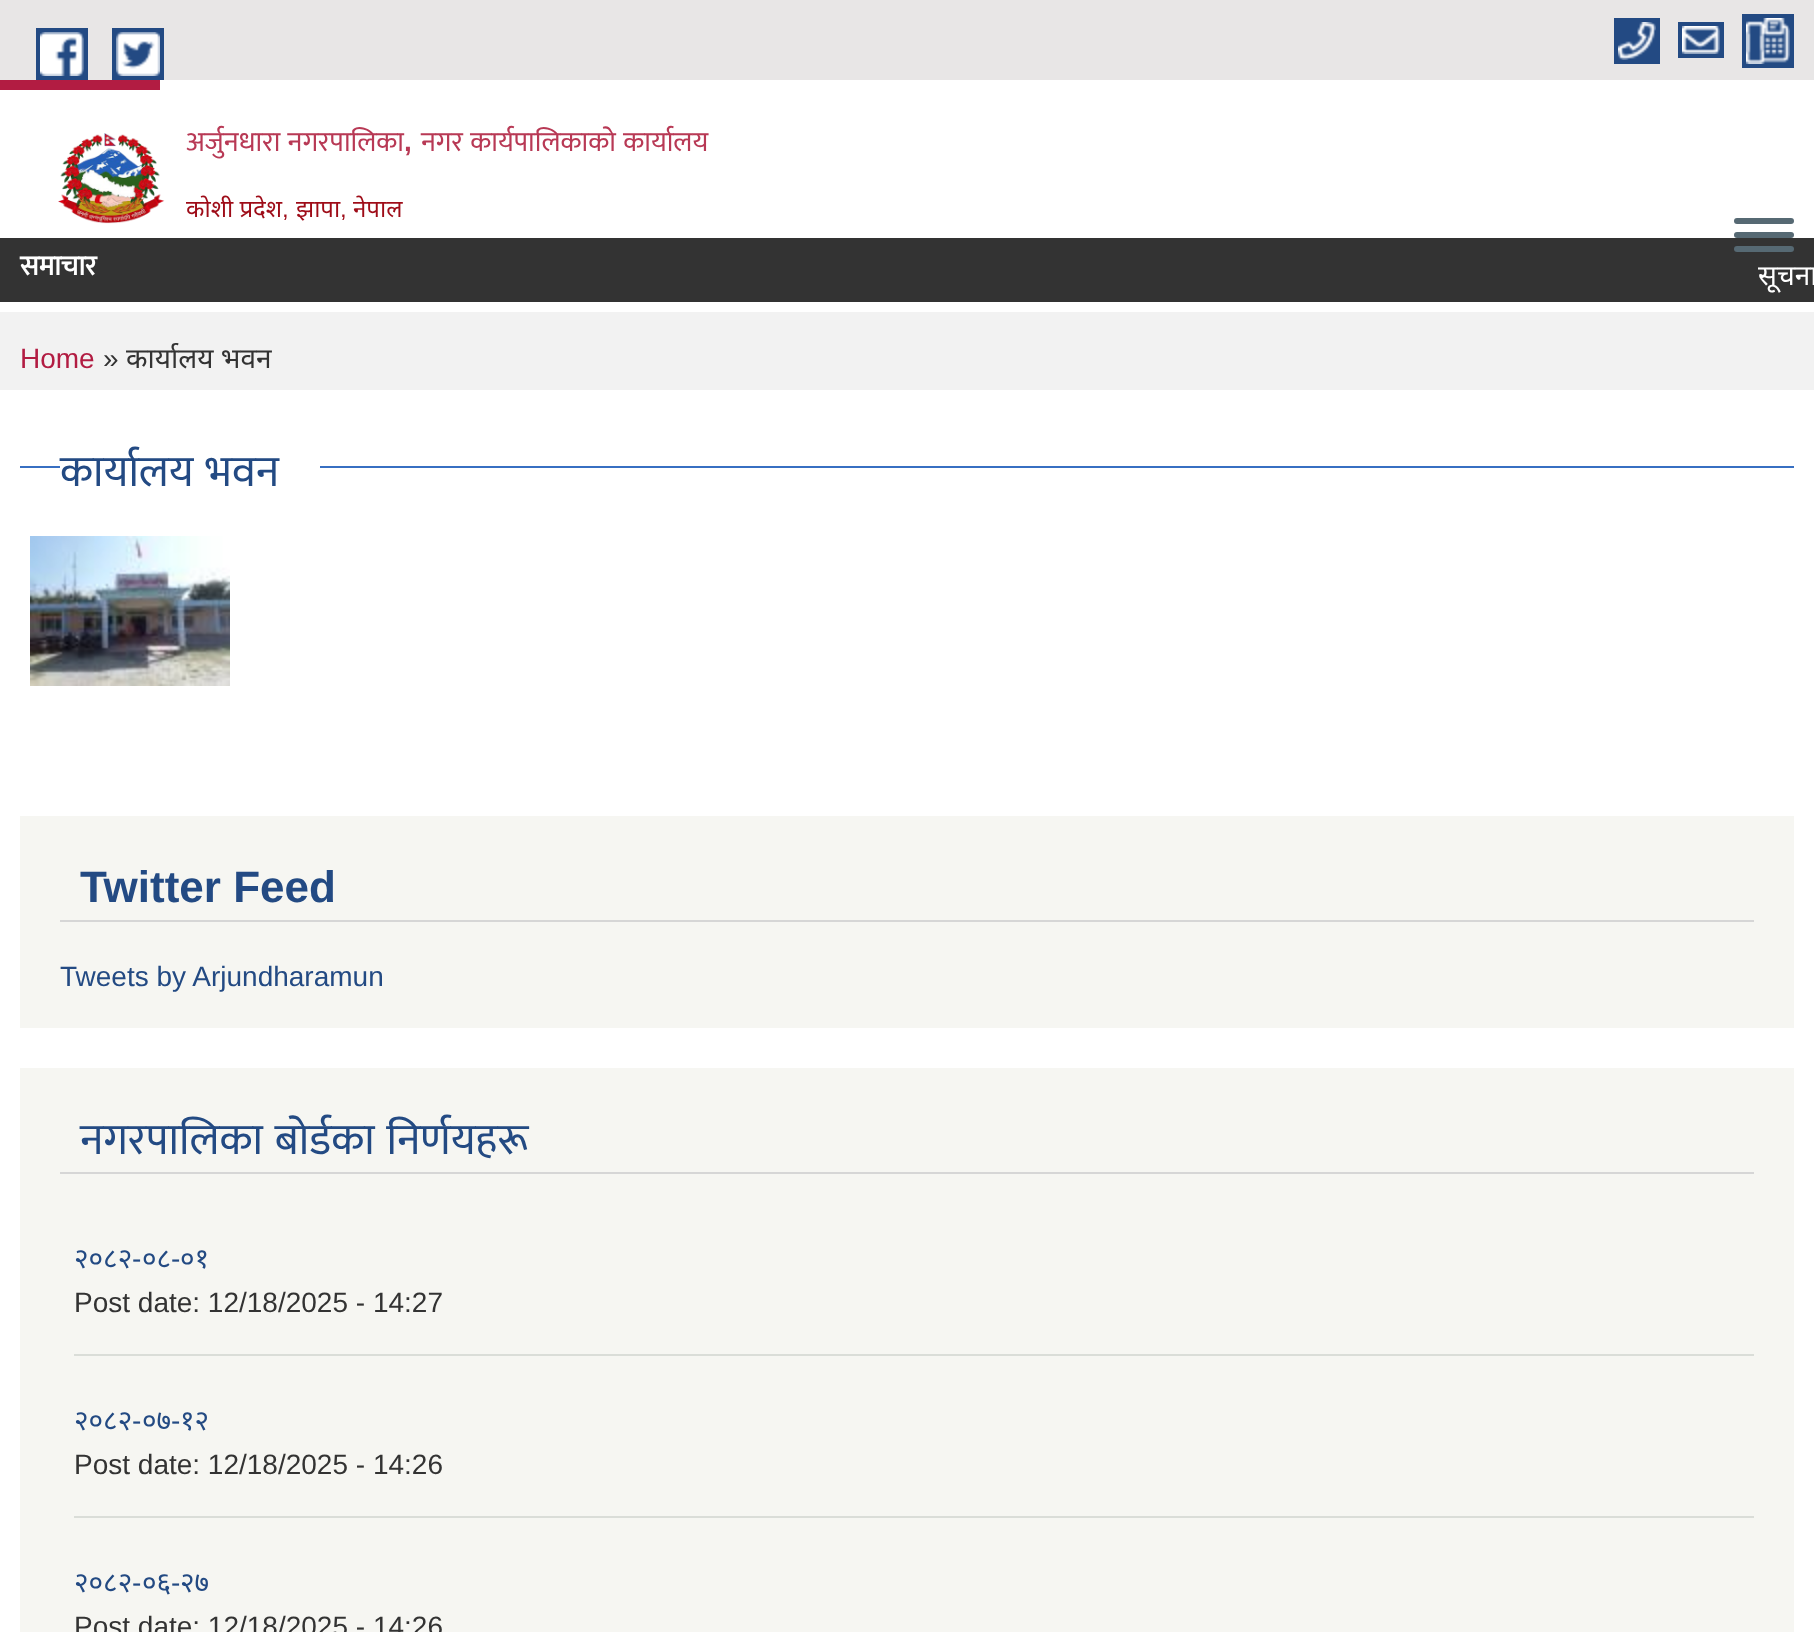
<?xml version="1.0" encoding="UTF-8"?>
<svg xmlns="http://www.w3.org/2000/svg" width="1814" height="1632">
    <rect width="100%" height="100%" fill="#FFFFFF"/>
    <rect x="0" y="0" width="1814" height="80" fill="#E8E6E6"/>
    <rect x="36" y="28" width="52" height="52" fill="#234A83"/>
    <rect x="112" y="28" width="52" height="52" fill="#234A83"/>
    <image x="40" y="32" width="44" height="44" href="img_01.png"/>
    <image x="116" y="32" width="44" height="44" href="img_02.png"/>
    <rect x="1614" y="18" width="46" height="46" fill="#234A83"/>
    <rect x="1742" y="14" width="52" height="54" fill="#234A83"/>
    <image x="1618" y="22" width="38" height="38" href="img_03.png"/>
    <rect x="1678" y="22" width="46" height="36" fill="#234A83"/>
    <image x="1746" y="18" width="44" height="46" href="img_04.png"/>
    <image x="1682" y="26" width="38" height="28" href="img_05.png"/>
    <rect x="0" y="80" width="160" height="10" fill="#B21C42"/>
    <image x="58" y="133" width="107" height="91" href="img_06.png"/>
    <text x="186" y="151" word-spacing="1" font-family="Mukta" font-size="28" fill="#B83955">अर्जुनधारा नगरपालिका</text>
    <text x="404" y="151" font-family="Liberation Sans" font-size="28" font-weight="700" fill="#B83955">,</text>
    <text x="421" y="151" word-spacing="1" font-family="Mukta" font-size="28" fill="#B83955">नगर कार्यपालिकाको कार्यालय</text>
    <text x="186" y="217" font-family="Noto Sans" font-size="24" fill="#9E0C18">कोशी प्रदेश</text>
    <text x="282" y="217" font-family="Liberation Sans" font-size="24" fill="#9E0C18">,</text>
    <text x="296" y="217" font-family="Noto Sans" font-size="24" fill="#9E0C18">झापा</text>
    <text x="340" y="217" font-family="Liberation Sans" font-size="24" fill="#9E0C18">,</text>
    <text x="353" y="217" font-family="Noto Sans" font-size="24" fill="#9E0C18">नेपाल</text>
    <rect x="1734" y="218" width="60" height="6" rx="3" fill="#566973"/>
    <rect x="1734" y="232" width="60" height="6" rx="3" fill="#566973"/>
    <rect x="0" y="238" width="1814" height="64" fill="#333333"/>
    <rect x="1734" y="246" width="60" height="6" rx="3" fill="#566973"/>
    <text x="20" y="275" font-family="Mukta" font-size="28" font-weight="700" fill="#FFFFFF">समाचार</text>
    <text x="1758" y="285" font-family="Noto Sans" font-size="28" fill="#FFFFFF">सूचना</text>
    <rect x="0" y="312" width="1814" height="78" fill="#F2F2F2"/>
    <text x="20" y="368" font-family="Liberation Sans" font-size="28" fill="#B21C42">Home</text>
    <text x="103" y="368" font-family="Liberation Sans" font-size="28" fill="#333333">»</text>
    <text x="126" y="368" font-family="Noto Sans" font-size="28" fill="#333333">कार्यालय भवन</text>
    <rect x="20" y="466" width="1774" height="2" fill="#376FC2"/>
    <rect x="60" y="466" width="260" height="2" fill="#FFFFFF"/>
    <text x="60" y="486" word-spacing="2" font-family="Mukta" font-size="44" fill="#234A83">कार्यालय भवन</text>
    <image x="30" y="536" width="200" height="150" href="img_07.png"/>
    <rect x="20" y="816" width="1774" height="212" fill="#F6F6F2"/>
    <rect x="60" y="920" width="1694" height="2" fill="#D6D6D6"/>
    <text x="80" y="902" font-family="Liberation Sans" font-size="44" font-weight="700" fill="#234A83">Twitter Feed</text>
    <text x="60" y="986" font-family="Liberation Sans" font-size="28" fill="#234A83">Tweets by Arjundharamun</text>
    <rect x="20" y="1068" width="1774" height="564" fill="#F6F6F2"/>
    <rect x="60" y="1172" width="1694" height="2" fill="#D6D6D6"/>
    <text x="80" y="1154" word-spacing="2" font-family="Mukta" font-size="44" fill="#234A83">नगरपालिका बाेर्डका निर्णयहरू</text>
    <rect x="74" y="1354" width="1680" height="2" fill="#DADDD8"/>
    <text x="74" y="1268" font-family="Noto Sans" font-size="28" fill="#234A83">२०८२</text>
    <text x="132" y="1268" font-family="Liberation Sans" font-size="28" fill="#234A83">-</text>
    <text x="142" y="1268" font-family="Noto Sans" font-size="28" fill="#234A83">०८</text>
    <text x="171" y="1268" font-family="Liberation Sans" font-size="28" fill="#234A83">-</text>
    <text x="180" y="1268" font-family="Noto Sans" font-size="28" fill="#234A83">०१</text>
    <text x="74" y="1312" font-family="Liberation Sans" font-size="28" fill="#333333">Post date: 12/18/2025 - 14:27</text>
    <rect x="74" y="1516" width="1680" height="2" fill="#DADDD8"/>
    <text x="74" y="1430" font-family="Noto Sans" font-size="28" fill="#234A83">२०८२</text>
    <text x="132" y="1430" font-family="Liberation Sans" font-size="28" fill="#234A83">-</text>
    <text x="142" y="1430" font-family="Noto Sans" font-size="28" fill="#234A83">०७</text>
    <text x="171" y="1430" font-family="Liberation Sans" font-size="28" fill="#234A83">-</text>
    <text x="180" y="1430" font-family="Noto Sans" font-size="28" fill="#234A83">१२</text>
    <text x="74" y="1474" font-family="Liberation Sans" font-size="28" fill="#333333">Post date: 12/18/2025 - 14:26</text>
    <text x="74" y="1592" font-family="Noto Sans" font-size="28" fill="#234A83">२०८२</text>
    <text x="132" y="1592" font-family="Liberation Sans" font-size="28" fill="#234A83">-</text>
    <text x="142" y="1592" font-family="Noto Sans" font-size="28" fill="#234A83">०६</text>
    <text x="171" y="1592" font-family="Liberation Sans" font-size="28" fill="#234A83">-</text>
    <text x="180" y="1592" font-family="Noto Sans" font-size="28" fill="#234A83">२७</text>
    <text x="74" y="1636" font-family="Liberation Sans" font-size="28" fill="#333333">Post date: 12/18/2025 - 14:26</text>
</svg>
